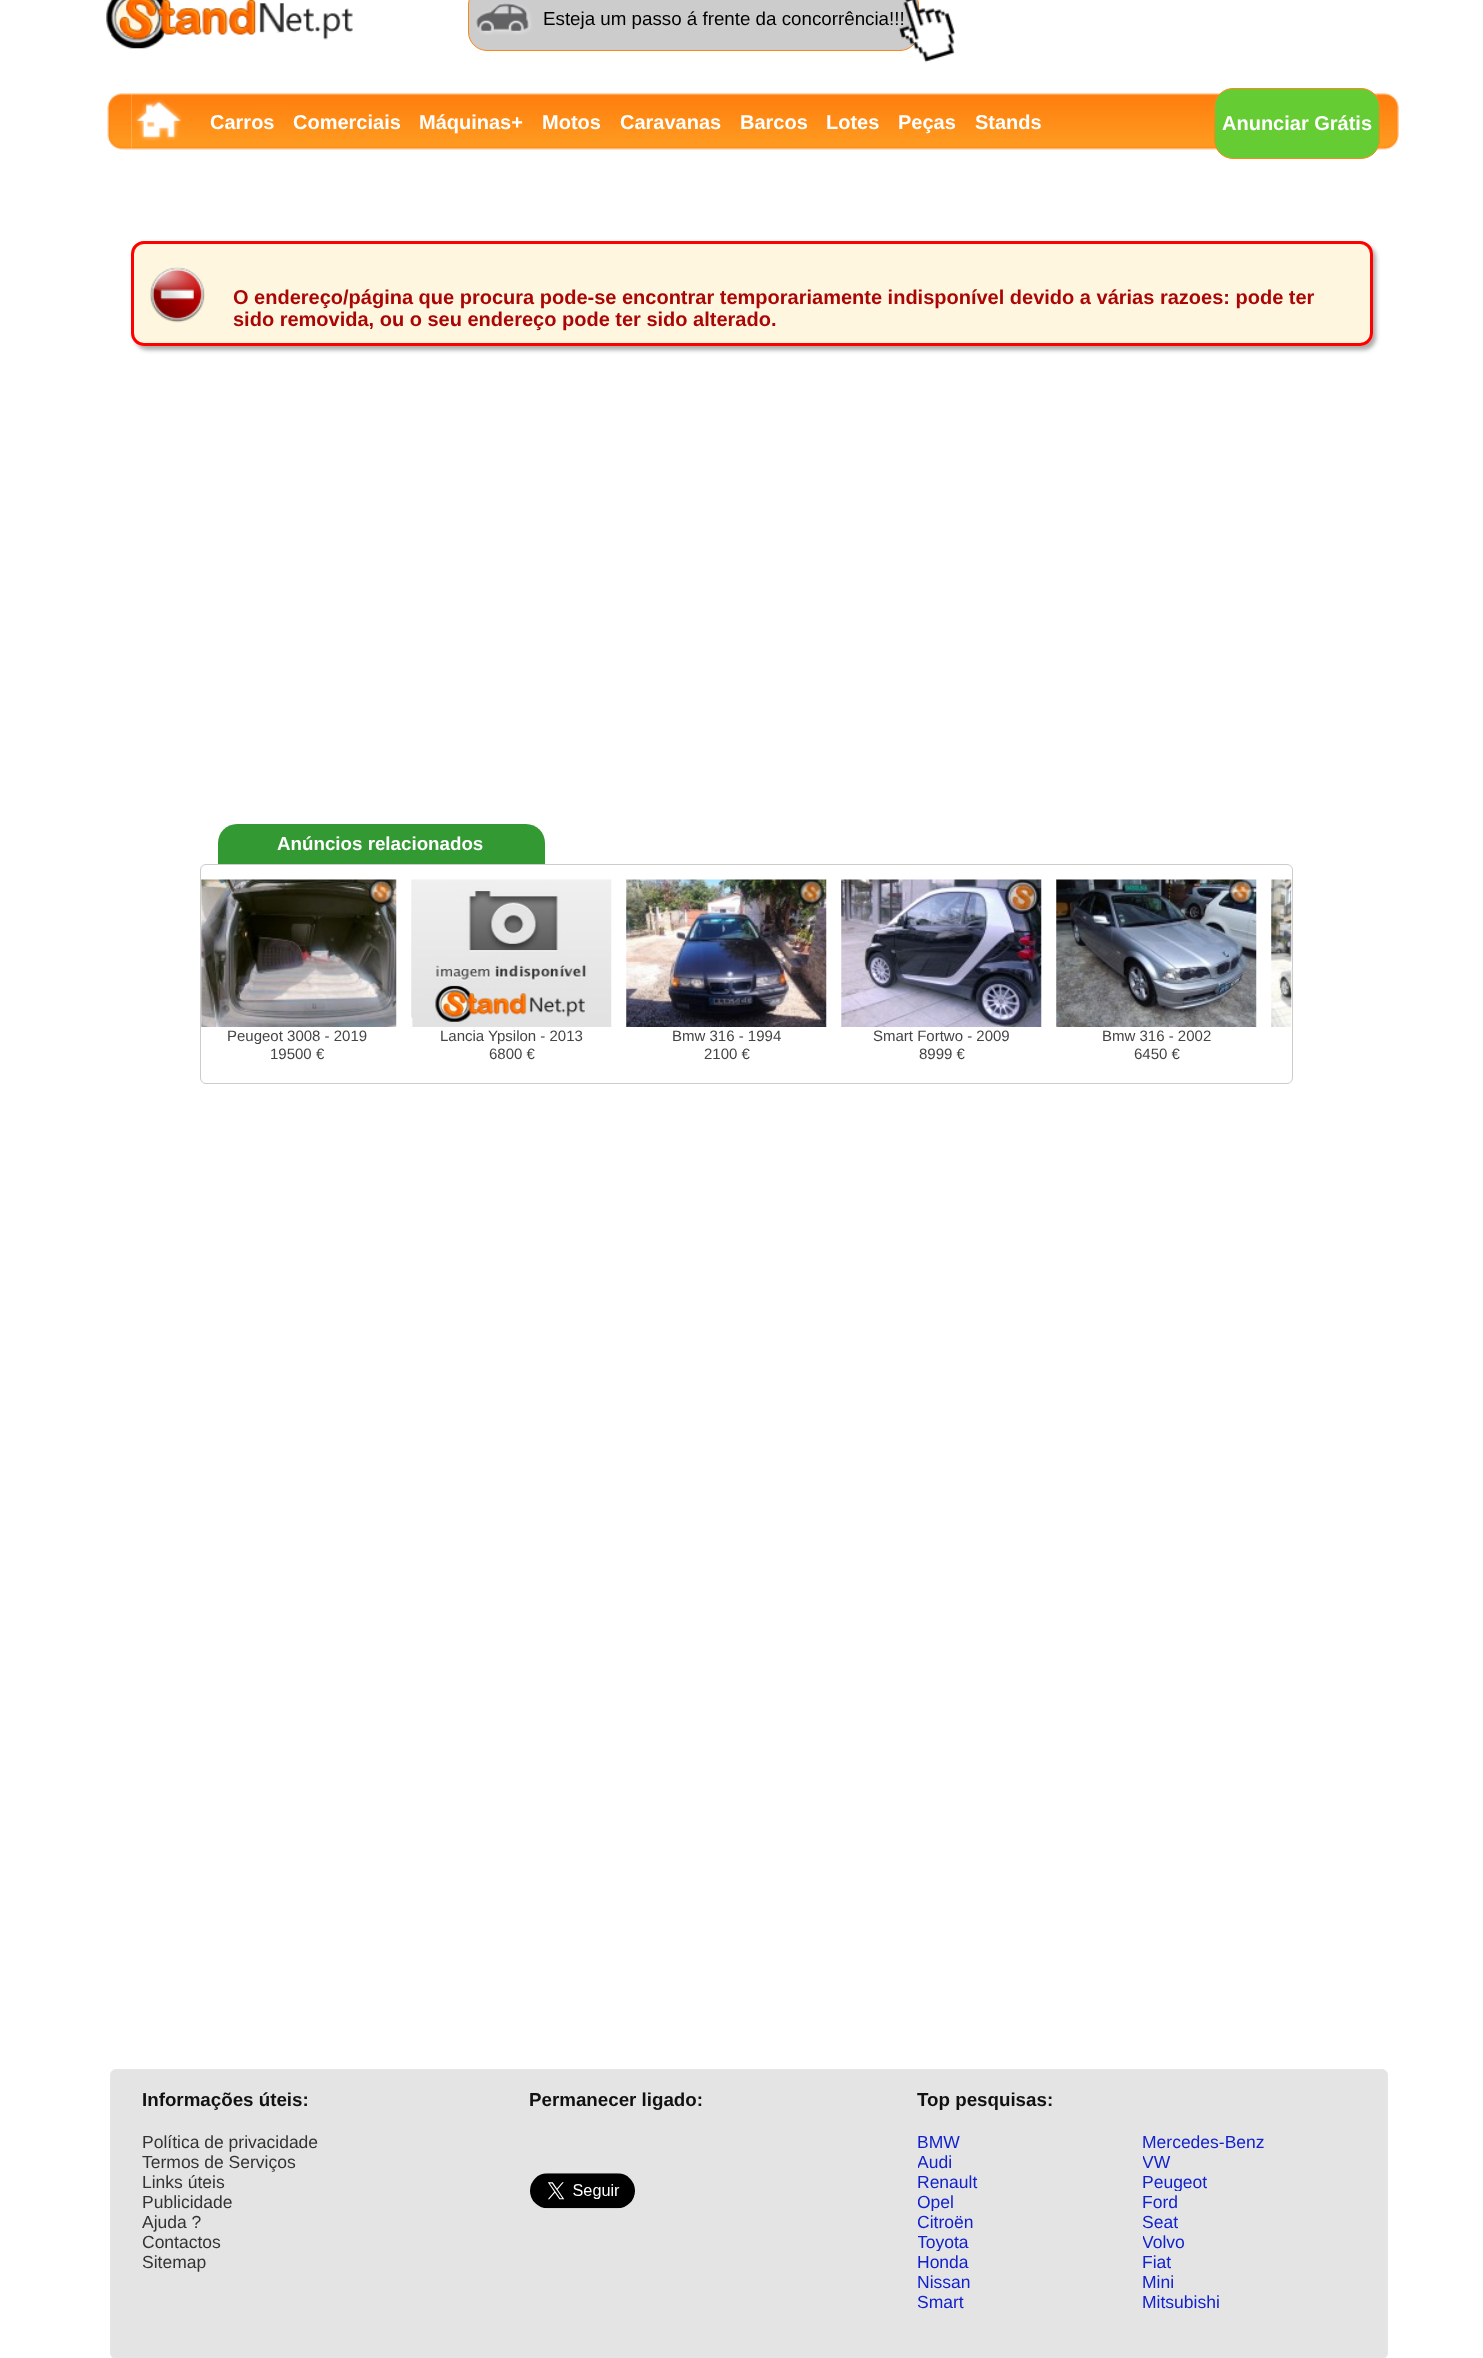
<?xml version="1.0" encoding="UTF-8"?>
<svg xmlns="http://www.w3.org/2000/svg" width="1483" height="2358">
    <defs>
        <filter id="blur1" x="-50%" y="-200%" width="200%" height="500%"><feGaussianBlur stdDeviation="2"/></filter>
        <clipPath id="clip1"><rect x="918" y="2151" width="225" height="20"/></clipPath>
        <clipPath id="clip2"><rect x="1143" y="2151" width="225" height="20"/></clipPath>
        <clipPath id="clip3"><rect x="1143" y="2171" width="225" height="20"/></clipPath>
        <clipPath id="clip4"><rect x="918" y="2191" width="225" height="20"/></clipPath>
        <clipPath id="clip5"><rect x="918" y="2211" width="225" height="20"/></clipPath>
        <clipPath id="clip6"><rect x="918" y="2231" width="225" height="20"/></clipPath>
        <clipPath id="clip7"><rect x="1143" y="2231" width="225" height="20"/></clipPath>
    </defs>
    <rect width="100%" height="100%" fill="#FFFFFF"/>
    <image x="106" y="0" width="247" height="49" href="img_01.png"/>
    <rect x="468.5" y="-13.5" width="450" height="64" rx="18.5" fill="#CCCCCC" stroke="#FF8514"/>
    <image x="476" y="3" width="56" height="32" href="img_02.png"/>
    <text x="543" y="25" font-family="Liberation Sans" font-size="18.75" fill="#000000">Esteja um passo á frente da concorrência!!!</text>
    <image x="898" y="0" width="57" height="63" href="img_03.png"/>
    <image x="107" y="93" width="25" height="57" href="img_04.png"/>
    <image x="1376" y="93" width="23" height="57" href="img_07.png"/>
    <image x="131" y="93" width="1246" height="57" href="img_05.png"/>
    <image x="135" y="99" width="48" height="42" href="img_06.png"/>
    <text x="210" y="129" font-family="Liberation Sans" font-size="20" font-weight="700" fill="#FFFFFF">Carros</text>
    <text x="293" y="129" font-family="Liberation Sans" font-size="20" font-weight="700" fill="#FFFFFF">Comerciais</text>
    <text x="419" y="129" font-family="Liberation Sans" font-size="20" font-weight="700" fill="#FFFFFF">Máquinas+</text>
    <text x="542" y="129" font-family="Liberation Sans" font-size="20" font-weight="700" fill="#FFFFFF">Motos</text>
    <text x="620" y="129" font-family="Liberation Sans" font-size="20" font-weight="700" fill="#FFFFFF">Caravanas</text>
    <text x="740" y="129" font-family="Liberation Sans" font-size="20" font-weight="700" fill="#FFFFFF">Barcos</text>
    <text x="826" y="129" font-family="Liberation Sans" font-size="20" font-weight="700" fill="#FFFFFF">Lotes</text>
    <text x="898" y="129" font-family="Liberation Sans" font-size="20" font-weight="700" fill="#FFFFFF">Peças</text>
    <text x="975" y="129" font-family="Liberation Sans" font-size="20" font-weight="700" fill="#FFFFFF">Stands</text>
    <rect x="1214.5" y="88.5" width="165" height="70" rx="18.5" fill="#66CC33" stroke="#FF8815"/>
    <text x="1222" y="130" font-family="Liberation Sans" font-size="20" font-weight="700" fill="#FFFFFF">Anunciar Grátis</text>
    <rect x="135" y="245" width="1241" height="105" rx="13" fill="#AAAAAA" filter="url(#blur1)"/>
    <rect x="131" y="241" width="1242" height="105" rx="13" fill="#FFF6DF"/>
    <image x="150" y="267" width="55" height="56" href="img_08.png"/>
    <rect x="132.5" y="242.5" width="1239" height="102" rx="11.5" fill="none" stroke="#FF0000" stroke-width="3"/>
    <text font-family="Liberation Sans" font-size="20" font-weight="700" fill="#AA0606">
        <tspan x="233" y="304">O endereço/página que procura pode-se encontrar temporariamente indisponível devido a várias razoes: pode ter</tspan>
        <tspan x="233" y="326">sido removida, ou o seu endereço pode ter sido alterado.</tspan>
    </text>
    <path d="M 237 824 H 526 C 536.5 824 545 832.5 545 843 V 864 H 218 V 843 C 218 832.5 226.5 824 237 824 Z" fill="#339933"/>
    <text x="277" y="850" font-family="Liberation Sans" font-size="18.75" font-weight="700" fill="#FFFFFF">Anúncios relacionados</text>
    <rect x="200.5" y="864.5" width="1092" height="219" rx="5.5" fill="none" stroke="#CCCCCC"/>
    <image x="1271" y="879" width="21" height="148" href="img_09.png"/>
    <image x="201" y="879" width="196" height="148" href="img_10.png"/>
    <text x="227" y="1041" font-family="Liberation Sans" font-size="15" fill="#444444">Peugeot 3008 - 2019</text>
    <text x="270" y="1059" font-family="Liberation Sans" font-size="15" fill="#444444">19500 €</text>
    <image x="411" y="879" width="201" height="148" href="img_11.png"/>
    <text x="440" y="1041" font-family="Liberation Sans" font-size="15" fill="#444444">Lancia Ypsilon - 2013</text>
    <text x="489" y="1059" font-family="Liberation Sans" font-size="15" fill="#444444">6800 €</text>
    <image x="626" y="879" width="201" height="148" href="img_12.png"/>
    <text x="672" y="1041" font-family="Liberation Sans" font-size="15" fill="#444444">Bmw 316 - 1994</text>
    <text x="704" y="1059" font-family="Liberation Sans" font-size="15" fill="#444444">2100 €</text>
    <image x="841" y="879" width="201" height="148" href="img_13.png"/>
    <text x="873" y="1041" font-family="Liberation Sans" font-size="15" fill="#444444">Smart Fortwo - 2009</text>
    <text x="919" y="1059" font-family="Liberation Sans" font-size="15" fill="#444444">8999 €</text>
    <image x="1056" y="879" width="201" height="148" href="img_14.png"/>
    <text x="1102" y="1041" font-family="Liberation Sans" font-size="15" fill="#444444">Bmw 316 - 2002</text>
    <text x="1134" y="1059" font-family="Liberation Sans" font-size="15" fill="#444444">6450 €</text>
    <rect x="110.5" y="2069.5" width="1277" height="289" rx="5.5" fill="#E4E4E4" stroke="#E6E6E6"/>
    <text x="142" y="2106" font-family="Liberation Sans" font-size="18.75" font-weight="700" fill="#111111">Informações úteis:</text>
    <text font-family="Liberation Sans" font-size="17.5" fill="#333333">
        <tspan x="142" y="2148">Política de privacidade</tspan>
        <tspan x="142" y="2168">Termos de Serviços</tspan>
        <tspan x="142" y="2188">Links úteis</tspan>
        <tspan x="142" y="2208">Publicidade</tspan>
        <tspan x="142" y="2228">Ajuda ?</tspan>
        <tspan x="142" y="2248">Contactos</tspan>
        <tspan x="142" y="2268">Sitemap</tspan>
    </text>
    <text x="529" y="2106" font-family="Liberation Sans" font-size="18.75" font-weight="700" fill="#111111">Permanecer ligado:</text>
    <image x="530" y="2173" width="105" height="36" href="img_15.png"/>
    <text x="917" y="2106" font-family="Liberation Sans" font-size="18.75" font-weight="700" fill="#111111">Top pesquisas:</text>
    <text x="917" y="2148" font-family="Liberation Sans" font-size="17.5" fill="#1122CC">BMW</text>
    <text x="1142" y="2148" font-family="Liberation Sans" font-size="17.5" fill="#1122CC">Mercedes-Benz</text>
    <g clip-path="url(#clip1)">
        <text x="917" y="2168" font-family="Liberation Sans" font-size="17.5" fill="#1122CC">Audi</text>
    </g>
    <g clip-path="url(#clip2)">
        <text x="1142" y="2168" font-family="Liberation Sans" font-size="17.5" fill="#1122CC">VW</text>
    </g>
    <text x="917" y="2188" font-family="Liberation Sans" font-size="17.5" fill="#1122CC">Renault</text>
    <g clip-path="url(#clip3)">
        <text x="1142" y="2188" font-family="Liberation Sans" font-size="17.5" fill="#1122CC">Peugeot</text>
    </g>
    <g clip-path="url(#clip4)">
        <text x="917" y="2208" font-family="Liberation Sans" font-size="17.5" fill="#1122CC">Opel</text>
    </g>
    <text x="1142" y="2208" font-family="Liberation Sans" font-size="17.5" fill="#1122CC">Ford</text>
    <g clip-path="url(#clip5)">
        <text x="917" y="2228" font-family="Liberation Sans" font-size="17.5" fill="#1122CC">Citroën</text>
    </g>
    <text x="1142" y="2228" font-family="Liberation Sans" font-size="17.5" fill="#1122CC">Seat</text>
    <g clip-path="url(#clip6)">
        <text x="917" y="2248" font-family="Liberation Sans" font-size="17.5" fill="#1122CC">Toyota</text>
    </g>
    <g clip-path="url(#clip7)">
        <text x="1142" y="2248" font-family="Liberation Sans" font-size="17.5" fill="#1122CC">Volvo</text>
    </g>
    <text x="917" y="2268" font-family="Liberation Sans" font-size="17.5" fill="#1122CC">Honda</text>
    <text x="1142" y="2268" font-family="Liberation Sans" font-size="17.5" fill="#1122CC">Fiat</text>
    <text x="917" y="2288" font-family="Liberation Sans" font-size="17.5" fill="#1122CC">Nissan</text>
    <text x="1142" y="2288" font-family="Liberation Sans" font-size="17.5" fill="#1122CC">Mini</text>
    <text x="917" y="2308" font-family="Liberation Sans" font-size="17.5" fill="#1122CC">Smart</text>
    <text x="1142" y="2308" font-family="Liberation Sans" font-size="17.5" fill="#1122CC">Mitsubishi</text>
</svg>
